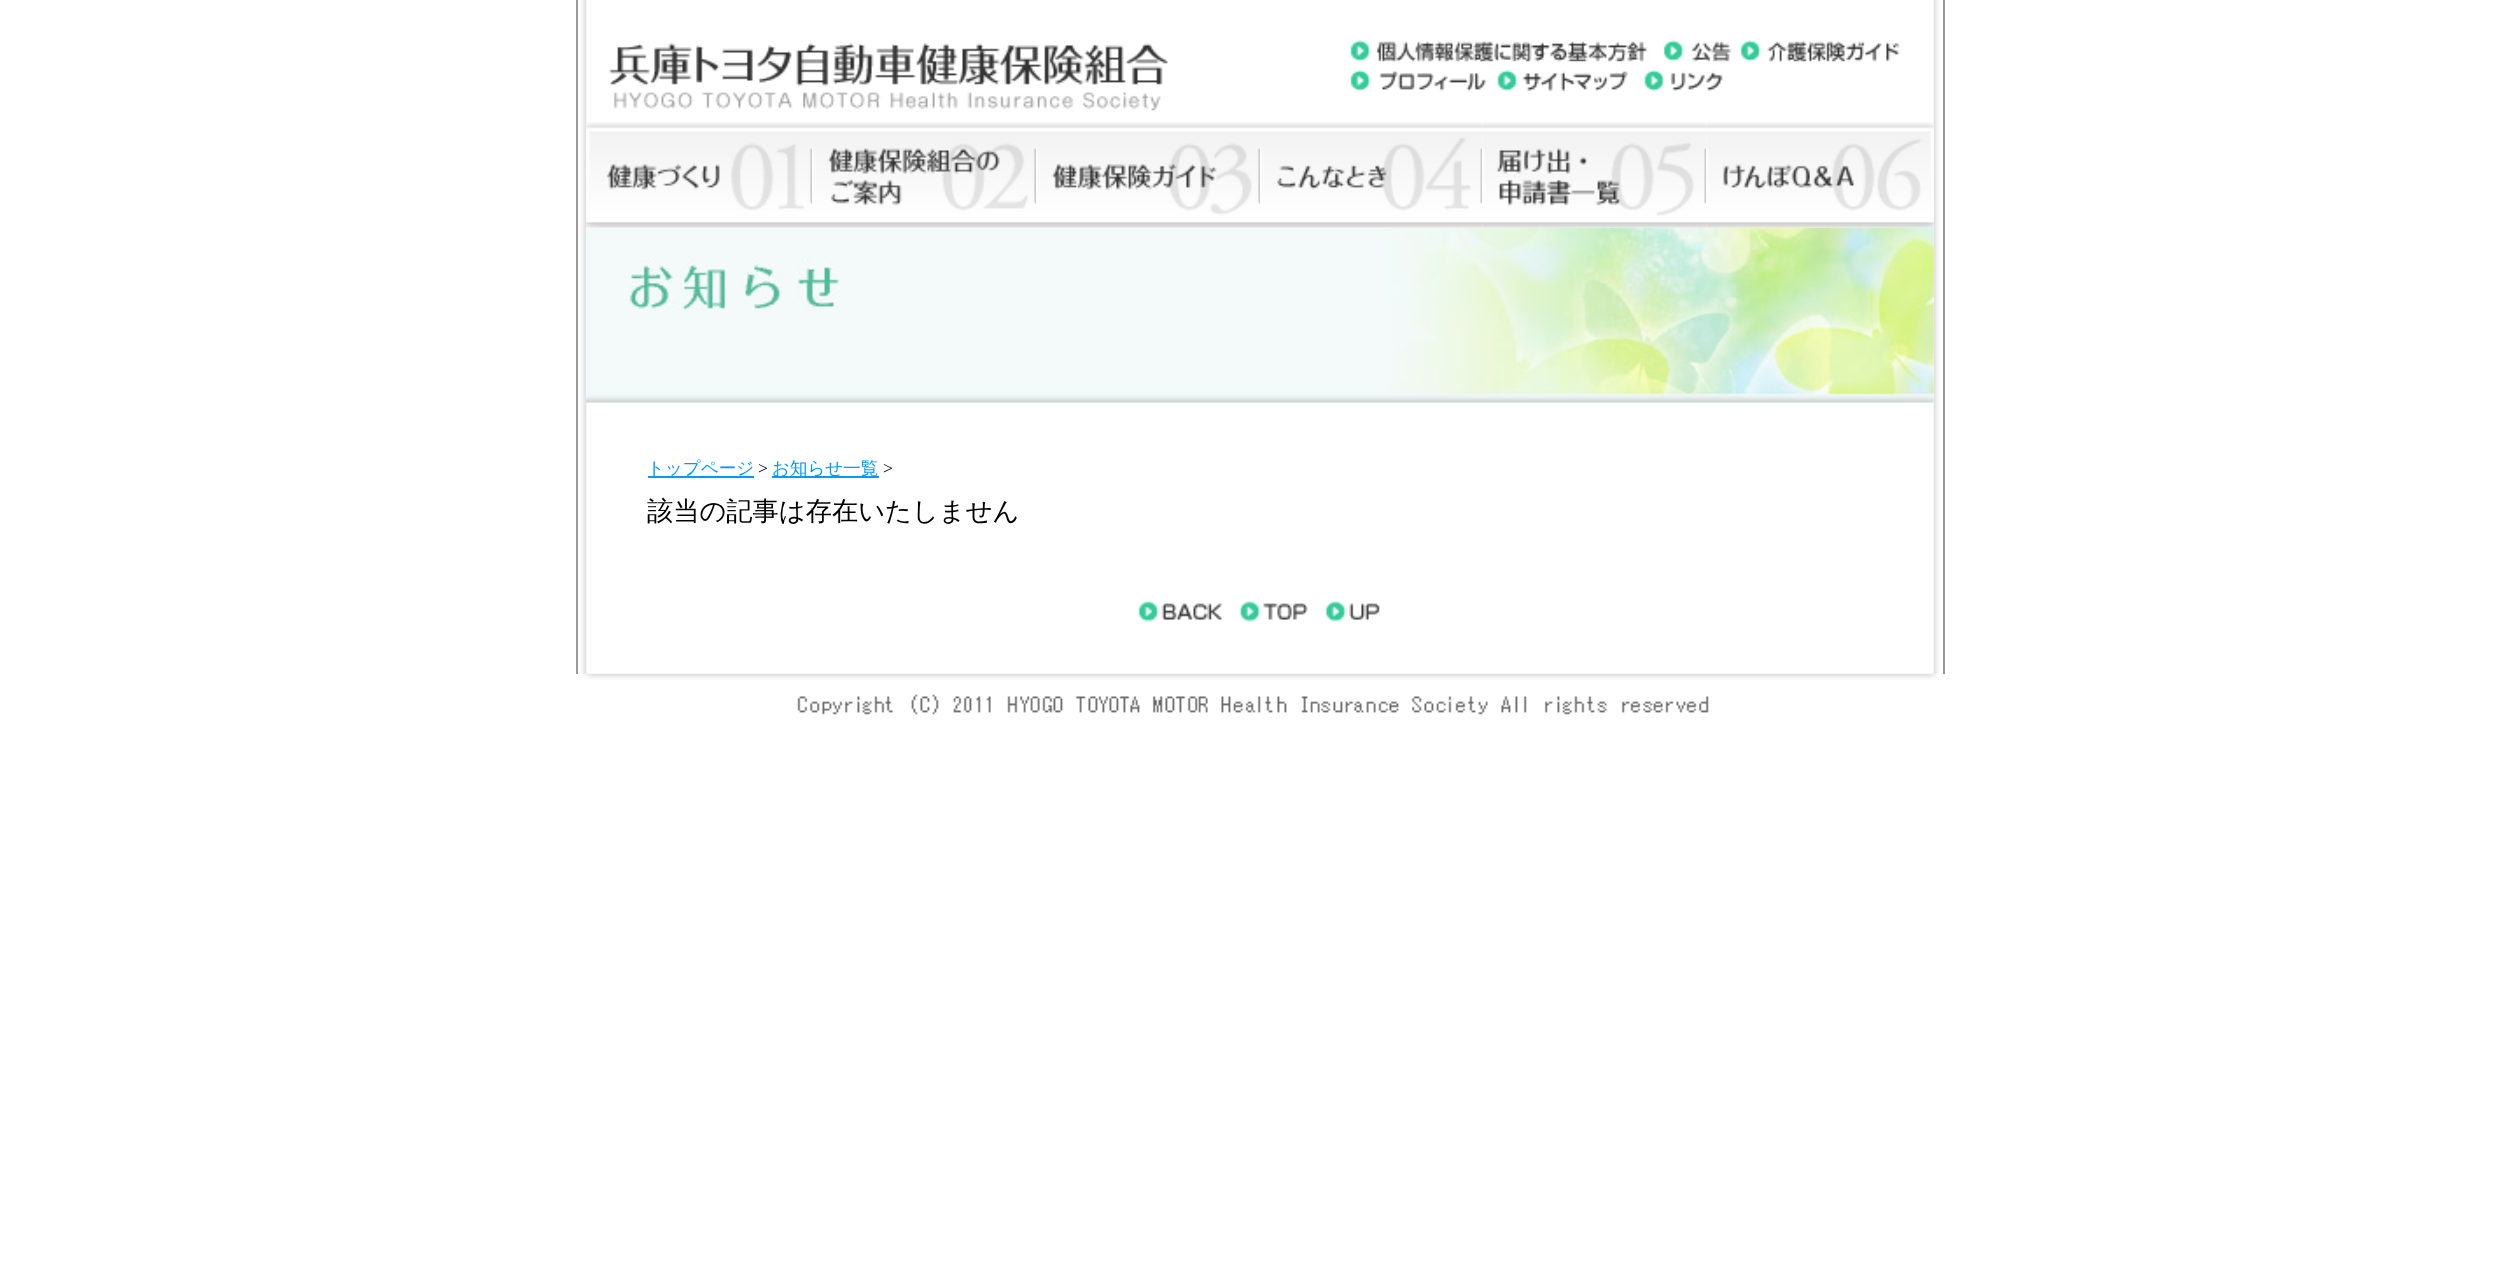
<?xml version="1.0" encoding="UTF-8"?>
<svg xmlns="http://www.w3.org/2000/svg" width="2517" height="1266">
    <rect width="100%" height="100%" fill="#FFFFFF"/>
    <image x="580" y="0" width="1360" height="674" href="img_01.png"/>
    <rect x="1943" y="0" width="2" height="674" fill="#999999"/>
    <rect x="576" y="0" width="2" height="674" fill="#999999"/>
    <image x="608" y="43" width="560" height="68" href="img_02.png"/>
    <image x="1350" y="40" width="298" height="22" href="img_03.png"/>
    <image x="1663" y="40" width="69" height="22" href="img_04.png"/>
    <image x="1740" y="40" width="160" height="22" href="img_05.png"/>
    <image x="1350" y="70" width="137" height="21" href="img_06.png"/>
    <image x="1497" y="70" width="131" height="21" href="img_07.png"/>
    <image x="1644" y="70" width="79" height="21" href="img_08.png"/>
    <image x="586" y="227" width="1348" height="176" href="img_15.png"/>
    <image x="586" y="122" width="226" height="106" href="img_09.png"/>
    <image x="812" y="122" width="224" height="106" href="img_10.png"/>
    <image x="1036" y="122" width="224" height="106" href="img_11.png"/>
    <image x="1260" y="122" width="223" height="106" href="img_12.png"/>
    <image x="1482" y="122" width="225" height="106" href="img_13.png"/>
    <image x="1706" y="122" width="228" height="106" href="img_14.png"/>
    <rect x="648" y="476" width="106" height="2" fill="#0099FF"/>
    <text x="647" y="474" font-family="WenQuanYi Zen Hei" font-size="17.5" font-weight="500" fill="#0099FF">トップページ</text>
    <text x="758" y="474" font-family="Liberation Serif" font-size="17.5" fill="#000000">&gt;</text>
    <rect x="772" y="476" width="107" height="2" fill="#0099FF"/>
    <text x="772" y="474" font-family="WenQuanYi Zen Hei" font-size="17.5" font-weight="500" fill="#0099FF">お知らせ一覧</text>
    <text x="883" y="474" font-family="Liberation Serif" font-size="17.5" fill="#000000">&gt;</text>
    <text x="647" y="520" font-family="WenQuanYi Zen Hei" font-size="26.25" font-weight="500" fill="#000000">該当の記事は存在いたしません</text>
    <image x="1138" y="601" width="84" height="21" href="img_16.png"/>
    <image x="1240" y="601" width="68" height="21" href="img_17.png"/>
    <image x="1326" y="601" width="54" height="21" href="img_18.png"/>
    <image x="582" y="673" width="1356" height="7" href="img_19.png"/>
    <image x="797" y="694" width="912" height="21" href="img_20.png"/>
</svg>
